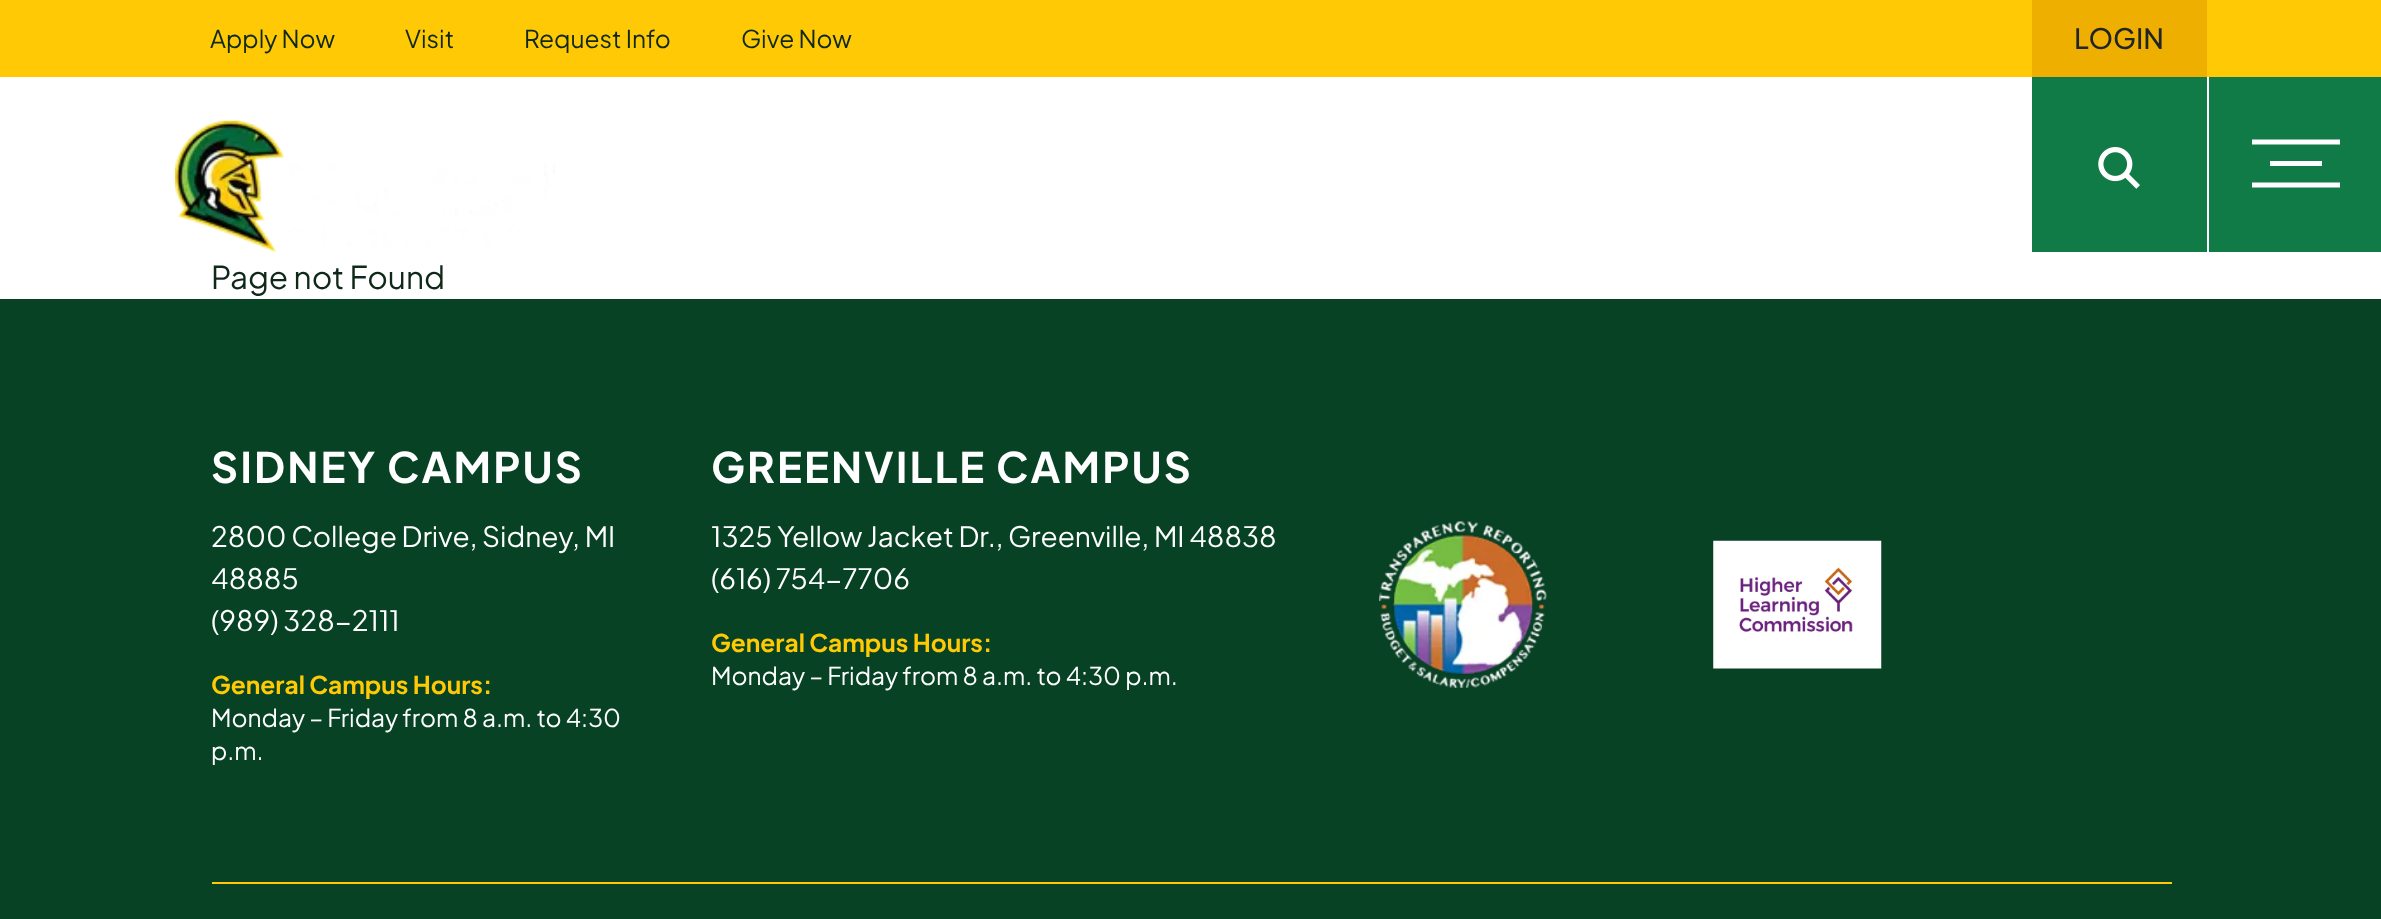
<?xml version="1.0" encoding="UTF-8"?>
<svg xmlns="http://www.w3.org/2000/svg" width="2381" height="919">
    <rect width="100%" height="100%" fill="#FFFFFF"/>
    <rect x="0" y="0" width="2381" height="77" fill="#FFCA05"/>
    <text x="210" y="48" font-family="Plus Jakarta Sans" font-size="24.5" fill="#102818">Apply Now</text>
    <text x="405" y="48" font-family="Plus Jakarta Sans" font-size="24.5" fill="#102818">Visit</text>
    <text x="524" y="48" font-family="Plus Jakarta Sans" font-size="24.5" fill="#102818">Request Info</text>
    <text x="741" y="48" font-family="Plus Jakarta Sans" font-size="24.5" fill="#102818">Give Now</text>
    <rect x="2032" y="0" width="175" height="77" fill="#EEAF00"/>
    <text x="2074" y="49" font-family="Plus Jakarta Sans" font-size="28" font-weight="500" fill="#212529">LOGIN</text>
    <image x="175" y="120" width="380" height="132" href="img_01.png"/>
    <rect x="2032" y="77" width="175" height="175" fill="#117B47"/>
    <image x="2098" y="147" width="42" height="42" href="img_02.png"/>
    <rect x="2209" y="77" width="172" height="175" fill="#117B47"/>
    <path d="M 2252 142 H 2340" fill="none" stroke="#FFFFFF" stroke-width="5.2"/>
    <rect x="2270" y="161" width="52" height="5" fill="#FFFFFF"/>
    <path d="M 2252 185 H 2340" fill="none" stroke="#FFFFFF" stroke-width="5.2"/>
    <text x="211" y="289" font-family="Plus Jakarta Sans" font-size="31.5" fill="#102818">Page not Found</text>
    <rect x="0" y="299" width="2381" height="620" fill="#074225"/>
    <rect x="212" y="882" width="1960" height="2" fill="#FFCA05"/>
    <text x="211" y="483" font-family="Plus Jakarta Sans" font-size="42" font-weight="700" letter-spacing="2.1" fill="#FFFFFF">SIDNEY CAMPUS</text>
    <text font-family="Plus Jakarta Sans" font-size="28" fill="#FFFFFF">
        <tspan x="211" y="547">2800 College Drive, Sidney, MI</tspan>
        <tspan x="211" y="589">48885</tspan>
        <tspan x="211" y="631">(989) 328-2111</tspan>
    </text>
    <text x="211" y="694" font-family="Plus Jakarta Sans" font-size="24.5" font-weight="700" fill="#FFCA05">General Campus Hours:</text>
    <text font-family="Plus Jakarta Sans" font-size="24.5" fill="#FFFFFF">
        <tspan x="211" y="727">Monday – Friday from 8 a.m. to 4:30</tspan>
        <tspan x="211" y="760">p.m.</tspan>
    </text>
    <text x="711" y="483" font-family="Plus Jakarta Sans" font-size="42" font-weight="700" letter-spacing="2.1" fill="#FFFFFF">GREENVILLE CAMPUS</text>
    <text font-family="Plus Jakarta Sans" font-size="28" fill="#FFFFFF">
        <tspan x="711" y="547">1325 Yellow Jacket Dr., Greenville, MI 48838</tspan>
        <tspan x="711" y="589">(616) 754-7706</tspan>
    </text>
    <text x="711" y="652" font-family="Plus Jakarta Sans" font-size="24.5" font-weight="700" fill="#FFCA05">General Campus Hours:</text>
    <text x="711" y="685" font-family="Plus Jakarta Sans" font-size="24.5" fill="#FFFFFF">Monday – Friday from 8 a.m. to 4:30 p.m.</text>
    <image x="1379" y="521" width="168" height="167" href="img_03.png"/>
    <image x="1713" y="540" width="169" height="129" href="img_04.png"/>
</svg>
